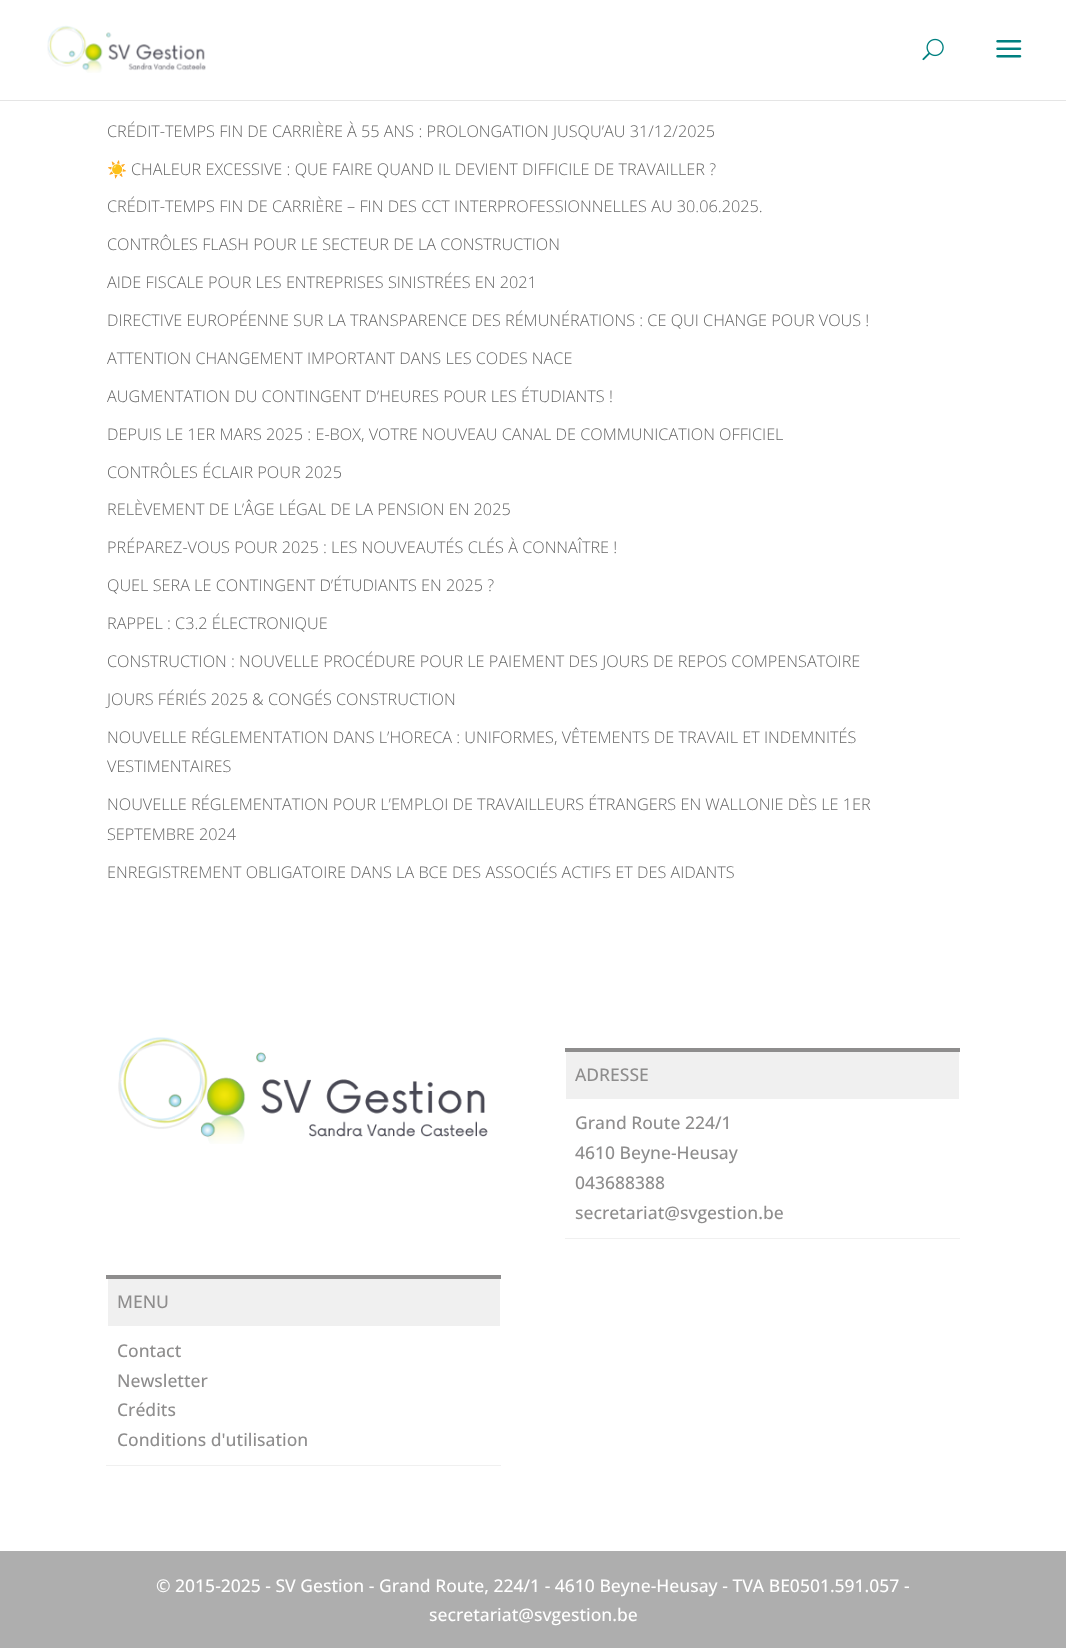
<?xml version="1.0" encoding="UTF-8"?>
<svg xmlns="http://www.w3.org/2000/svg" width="1066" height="1648">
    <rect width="100%" height="100%" fill="#FFFFFF"/>
    <rect x="0" y="100" width="1066" height="1" fill="#000000" fill-opacity="0.1"/>
    <image x="47" y="25" width="159" height="48" href="img_01.png"/>
    <image x="922" y="38" width="22" height="23" href="img_02.png"/>
    <image x="996" y="40" width="26" height="18" href="img_03.png"/>
    <text x="107" y="137" font-family="Open Sans" font-size="16.25" font-weight="300" fill="#666666">CRÉDIT-TEMPS FIN DE CARRIÈRE À 55 ANS : PROLONGATION JUSQU’AU 31/12/2025</text>
    <text x="107" y="175" font-family="Noto Color Emoji" font-size="16.25" fill="#666666">☀️</text>
    <text x="131" y="175" font-family="Open Sans" font-size="16.25" font-weight="300" fill="#666666">CHALEUR EXCESSIVE : QUE FAIRE QUAND IL DEVIENT DIFFICILE DE TRAVAILLER ?</text>
    <text x="107" y="212" font-family="Open Sans" font-size="16.25" font-weight="300" fill="#666666">CRÉDIT-TEMPS FIN DE CARRIÈRE – FIN DES CCT INTERPROFESSIONNELLES AU 30.06.2025.</text>
    <text x="107" y="250" font-family="Open Sans" font-size="16.25" font-weight="300" fill="#666666">CONTRÔLES FLASH POUR LE SECTEUR DE LA CONSTRUCTION</text>
    <text x="107" y="288" font-family="Open Sans" font-size="16.25" font-weight="300" fill="#666666">AIDE FISCALE POUR LES ENTREPRISES SINISTRÉES EN 2021</text>
    <text x="107" y="326" font-family="Open Sans" font-size="16.25" font-weight="300" fill="#666666">DIRECTIVE EUROPÉENNE SUR LA TRANSPARENCE DES RÉMUNÉRATIONS : CE QUI CHANGE POUR VOUS !</text>
    <text x="107" y="364" font-family="Open Sans" font-size="16.25" font-weight="300" fill="#666666">ATTENTION CHANGEMENT IMPORTANT DANS LES CODES NACE</text>
    <text x="107" y="402" font-family="Open Sans" font-size="16.25" font-weight="300" fill="#666666">AUGMENTATION DU CONTINGENT D’HEURES POUR LES ÉTUDIANTS !</text>
    <text x="107" y="440" font-family="Open Sans" font-size="16.25" font-weight="300" fill="#666666">DEPUIS LE 1ER MARS 2025 : E-BOX, VOTRE NOUVEAU CANAL DE COMMUNICATION OFFICIEL</text>
    <text x="107" y="478" font-family="Open Sans" font-size="16.25" font-weight="300" fill="#666666">CONTRÔLES ÉCLAIR POUR 2025</text>
    <text x="107" y="515" font-family="Open Sans" font-size="16.25" font-weight="300" fill="#666666">RELÈVEMENT DE L’ÂGE LÉGAL DE LA PENSION EN 2025</text>
    <text x="107" y="553" font-family="Open Sans" font-size="16.25" font-weight="300" fill="#666666">PRÉPAREZ-VOUS POUR 2025 : LES NOUVEAUTÉS CLÉS À CONNAÎTRE !</text>
    <text x="107" y="591" font-family="Open Sans" font-size="16.25" font-weight="300" fill="#666666">QUEL SERA LE CONTINGENT D’ÉTUDIANTS EN 2025 ?</text>
    <text x="107" y="629" font-family="Open Sans" font-size="16.25" font-weight="300" fill="#666666">RAPPEL : C3.2 ÉLECTRONIQUE</text>
    <text x="107" y="667" font-family="Open Sans" font-size="16.25" font-weight="300" fill="#666666">CONSTRUCTION : NOUVELLE PROCÉDURE POUR LE PAIEMENT DES JOURS DE REPOS COMPENSATOIRE</text>
    <text x="107" y="705" font-family="Open Sans" font-size="16.25" font-weight="300" fill="#666666">JOURS FÉRIÉS 2025 &amp; CONGÉS CONSTRUCTION</text>
    <text font-family="Open Sans" font-size="16.25" font-weight="300" fill="#666666">
        <tspan x="107" y="743">NOUVELLE RÉGLEMENTATION DANS L’HORECA : UNIFORMES, VÊTEMENTS DE TRAVAIL ET INDEMNITÉS</tspan>
        <tspan x="107" y="772">VESTIMENTAIRES</tspan>
    </text>
    <text font-family="Open Sans" font-size="16.25" font-weight="300" fill="#666666">
        <tspan x="107" y="810">NOUVELLE RÉGLEMENTATION POUR L’EMPLOI DE TRAVAILLEURS ÉTRANGERS EN WALLONIE DÈS LE 1ER</tspan>
        <tspan x="107" y="840">SEPTEMBRE 2024</tspan>
    </text>
    <text x="107" y="878" font-family="Open Sans" font-size="16.25" font-weight="300" fill="#666666">ENREGISTREMENT OBLIGATOIRE DANS LA BCE DES ASSOCIÉS ACTIFS ET DES AIDANTS</text>
    <image x="118" y="1037" width="370" height="107" href="img_04.png"/>
    <rect x="565" y="1238" width="395" height="1" fill="#F0F0F0"/>
    <rect x="565" y="1048" width="395" height="4" fill="#8E8D8D"/>
    <rect x="566" y="1052" width="393" height="47" fill="#F0F0F0"/>
    <text x="575" y="1081" font-family="Open Sans" font-size="17.5" font-weight="500" fill="#8E8D8D">ADRESSE</text>
    <text font-family="Open Sans" font-size="17.5" font-weight="500" fill="#8E8D8D">
        <tspan x="575" y="1129">Grand Route 224/1</tspan>
        <tspan x="575" y="1159">4610 Beyne-Heusay</tspan>
        <tspan x="575" y="1189">043688388</tspan>
        <tspan x="575" y="1219">secretariat@svgestion.be</tspan>
    </text>
    <rect x="106" y="1465" width="395" height="1" fill="#F0F0F0"/>
    <rect x="106" y="1275" width="395" height="4" fill="#8E8D8D"/>
    <rect x="108" y="1279" width="392" height="47" fill="#F0F0F0"/>
    <text x="117" y="1308" font-family="Open Sans" font-size="17.5" font-weight="500" fill="#8E8D8D">MENU</text>
    <text font-family="Open Sans" font-size="17.5" font-weight="500" fill="#8E8D8D">
        <tspan x="117" y="1357">Contact</tspan>
        <tspan x="117" y="1387">Newsletter</tspan>
        <tspan x="117" y="1416">Crédits</tspan>
        <tspan x="117" y="1446">Conditions d'utilisation</tspan>
    </text>
    <rect x="0" y="1551" width="1066" height="97" fill="#AEAEAE"/>
    <text x="156" y="1592" font-family="Open Sans" font-size="17.5" font-weight="500" fill="#FFFFFF">© 2015-2025 - SV Gestion - Grand Route, 224/1 - 4610 Beyne-Heusay - TVA BE0501.591.057 -</text>
    <text x="429" y="1621" font-family="Open Sans" font-size="17.5" font-weight="500" fill="#FFFFFF">secretariat@svgestion.be</text>
</svg>
